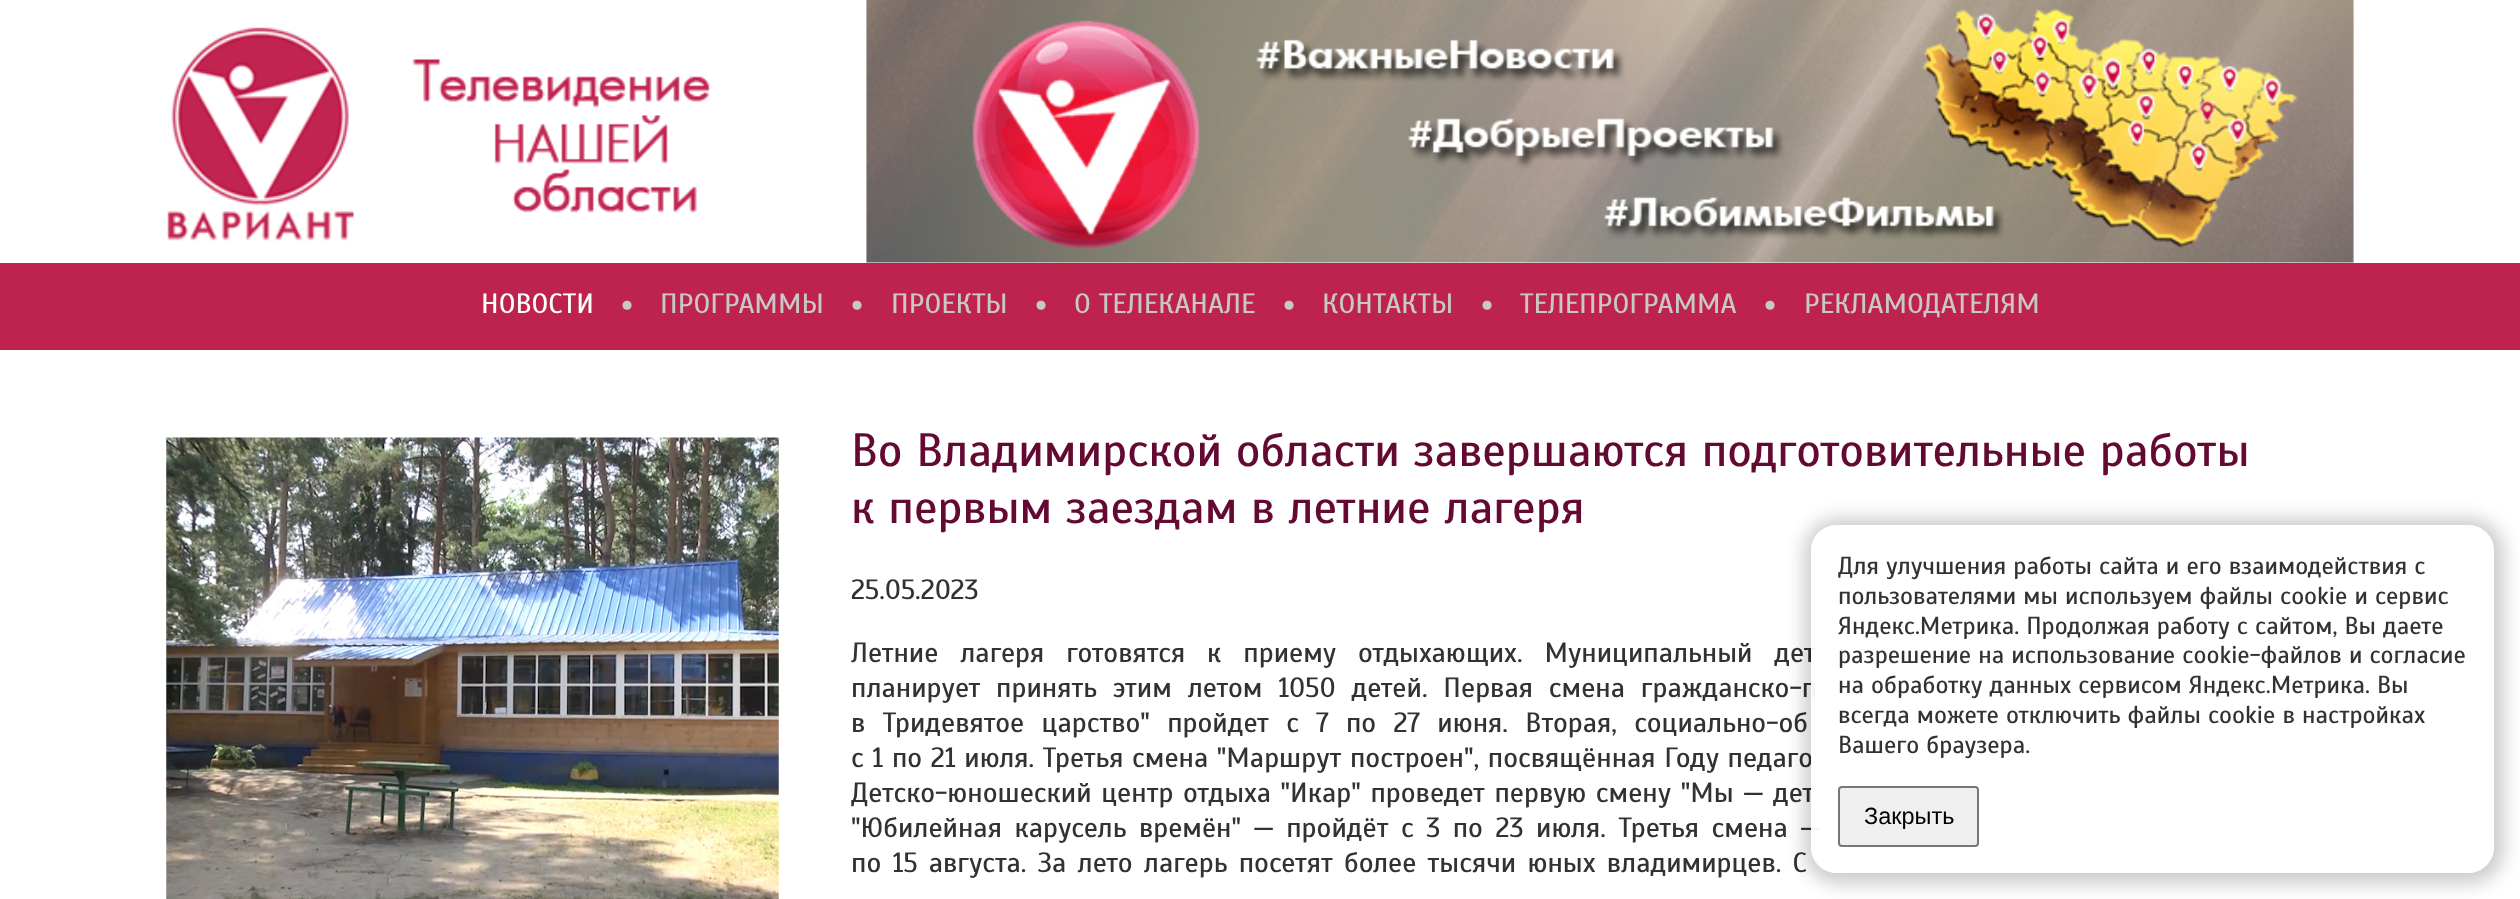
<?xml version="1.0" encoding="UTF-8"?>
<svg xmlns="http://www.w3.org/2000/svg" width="2520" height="899">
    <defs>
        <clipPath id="clip1"><path d="M 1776 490 H 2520 V 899 H 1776 Z M 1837 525 H 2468 C 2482.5 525 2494 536.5 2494 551 V 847 C 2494 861.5 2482.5 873 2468 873 H 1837 C 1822.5 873 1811 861.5 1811 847 V 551 C 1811 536.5 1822.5 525 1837 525 Z" clip-rule="evenodd"/></clipPath>
        <filter id="blur1" x="-50%" y="-200%" width="200%" height="500%"><feGaussianBlur stdDeviation="9"/></filter>
    </defs>
    <rect width="100%" height="100%" fill="#FFFFFF"/>
    <image x="167" y="27" width="544" height="214" href="img_01.png"/>
    <image x="866" y="0" width="1488" height="263" href="img_02.png"/>
    <rect x="0" y="263" width="2520" height="87" fill="#BE2350"/>
    <text x="481" y="313" font-family="Scada" font-size="28" fill="#FFFFFF">НОВОСТИ</text>
    <text x="620" y="317" font-family="Scada" font-size="38" fill="#C8C8C8">•</text>
    <text x="660" y="313" font-family="Scada" font-size="28" fill="#C8C8C8">ПРОГРАММЫ</text>
    <text x="850" y="317" font-family="Scada" font-size="38" fill="#C8C8C8">•</text>
    <text x="891" y="313" font-family="Scada" font-size="28" fill="#C8C8C8">ПРОЕКТЫ</text>
    <text x="1034" y="317" font-family="Scada" font-size="38" fill="#C8C8C8">•</text>
    <text x="1074" y="313" font-family="Scada" font-size="28" fill="#C8C8C8">О ТЕЛЕКАНАЛЕ</text>
    <text x="1282" y="317" font-family="Scada" font-size="38" fill="#C8C8C8">•</text>
    <text x="1322" y="313" font-family="Scada" font-size="28" fill="#C8C8C8">КОНТАКТЫ</text>
    <text x="1480" y="317" font-family="Scada" font-size="38" fill="#C8C8C8">•</text>
    <text x="1520" y="313" font-family="Scada" font-size="28" fill="#C8C8C8">ТЕЛЕПРОГРАММА</text>
    <text x="1763" y="317" font-family="Scada" font-size="38" fill="#C8C8C8">•</text>
    <text x="1804" y="313" font-family="Scada" font-size="28" fill="#C8C8C8">РЕКЛАМОДАТЕЛЯМ</text>
    <image x="166" y="437" width="613" height="462" href="img_03.png"/>
    <text font-family="Scada" font-size="46.7" fill="#640A32">
        <tspan x="851" y="466">Во Владимирской области завершаются подготовительные работы</tspan>
        <tspan x="851" y="523">к первым заездам в летние лагеря</tspan>
    </text>
    <text x="851" y="599" font-family="Scada" font-size="28" fill="#323232">25.05.2023</text>
    <text font-family="Scada" font-size="28" fill="#323232">
        <tspan x="851" y="662" word-spacing="13.75">Летние лагеря готовятся к приему отдыхающих. Муниципальный дет</tspan>
        <tspan x="851" y="697" word-spacing="7.75">планирует принять этим летом 1050 детей. Первая смена гражданско-п</tspan>
        <tspan x="851" y="732" word-spacing="9.25">в Тридевятое царство" пройдет с 7 по 27 июня. Вторая, социально-об</tspan>
        <tspan x="851" y="767" word-spacing="0.5">с 1 по 21 июля. Третья смена "Маршрут построен", посвящённая Году педаго</tspan>
        <tspan x="851" y="802" word-spacing="1.5">Детско-юношеский центр отдыха "Икар" проведет первую смену "Мы — дет</tspan>
        <tspan x="851" y="837" word-spacing="4.4">"Юбилейная карусель времён" — пройдёт с 3 по 23 июля. Третья смена —</tspan>
        <tspan x="851" y="872" word-spacing="3.1">по 15 августа. За лето лагерь посетят более тысячи юных владимирцев. С</tspan>
    </text>
    <g clip-path="url(#clip1)">
        <rect x="1804" y="518" width="700" height="366" rx="35" fill="#000000" fill-opacity="0.2" filter="url(#blur1)"/>
    </g>
    <rect x="1811" y="525" width="683" height="348" rx="26" fill="#FFFFFF" fill-opacity="0.94"/>
    <text font-family="Scada" font-size="24.5" fill="#323232">
        <tspan x="1838" y="574">Для улучшения работы сайта и его взаимодействия с</tspan>
        <tspan x="1838" y="604">пользователями мы используем файлы cookie и сервис</tspan>
        <tspan x="1838" y="634">Яндекс.Метрика. Продолжая работу с сайтом, Вы даете</tspan>
        <tspan x="1838" y="663">разрешение на использование cookie-файлов и согласие</tspan>
        <tspan x="1838" y="693">на обработку данных сервисом Яндекс.Метрика. Вы</tspan>
        <tspan x="1838" y="723">всегда можете отключить файлы cookie в настройках</tspan>
        <tspan x="1838" y="753">Вашего браузера.</tspan>
    </text>
    <rect x="1839" y="787" width="139" height="59" rx="3" fill="#EFEFEF" stroke="#767676" stroke-width="2"/>
    <text x="1864" y="824" font-family="Liberation Sans" font-size="23.5" fill="#000000">Закрыть</text>
</svg>
